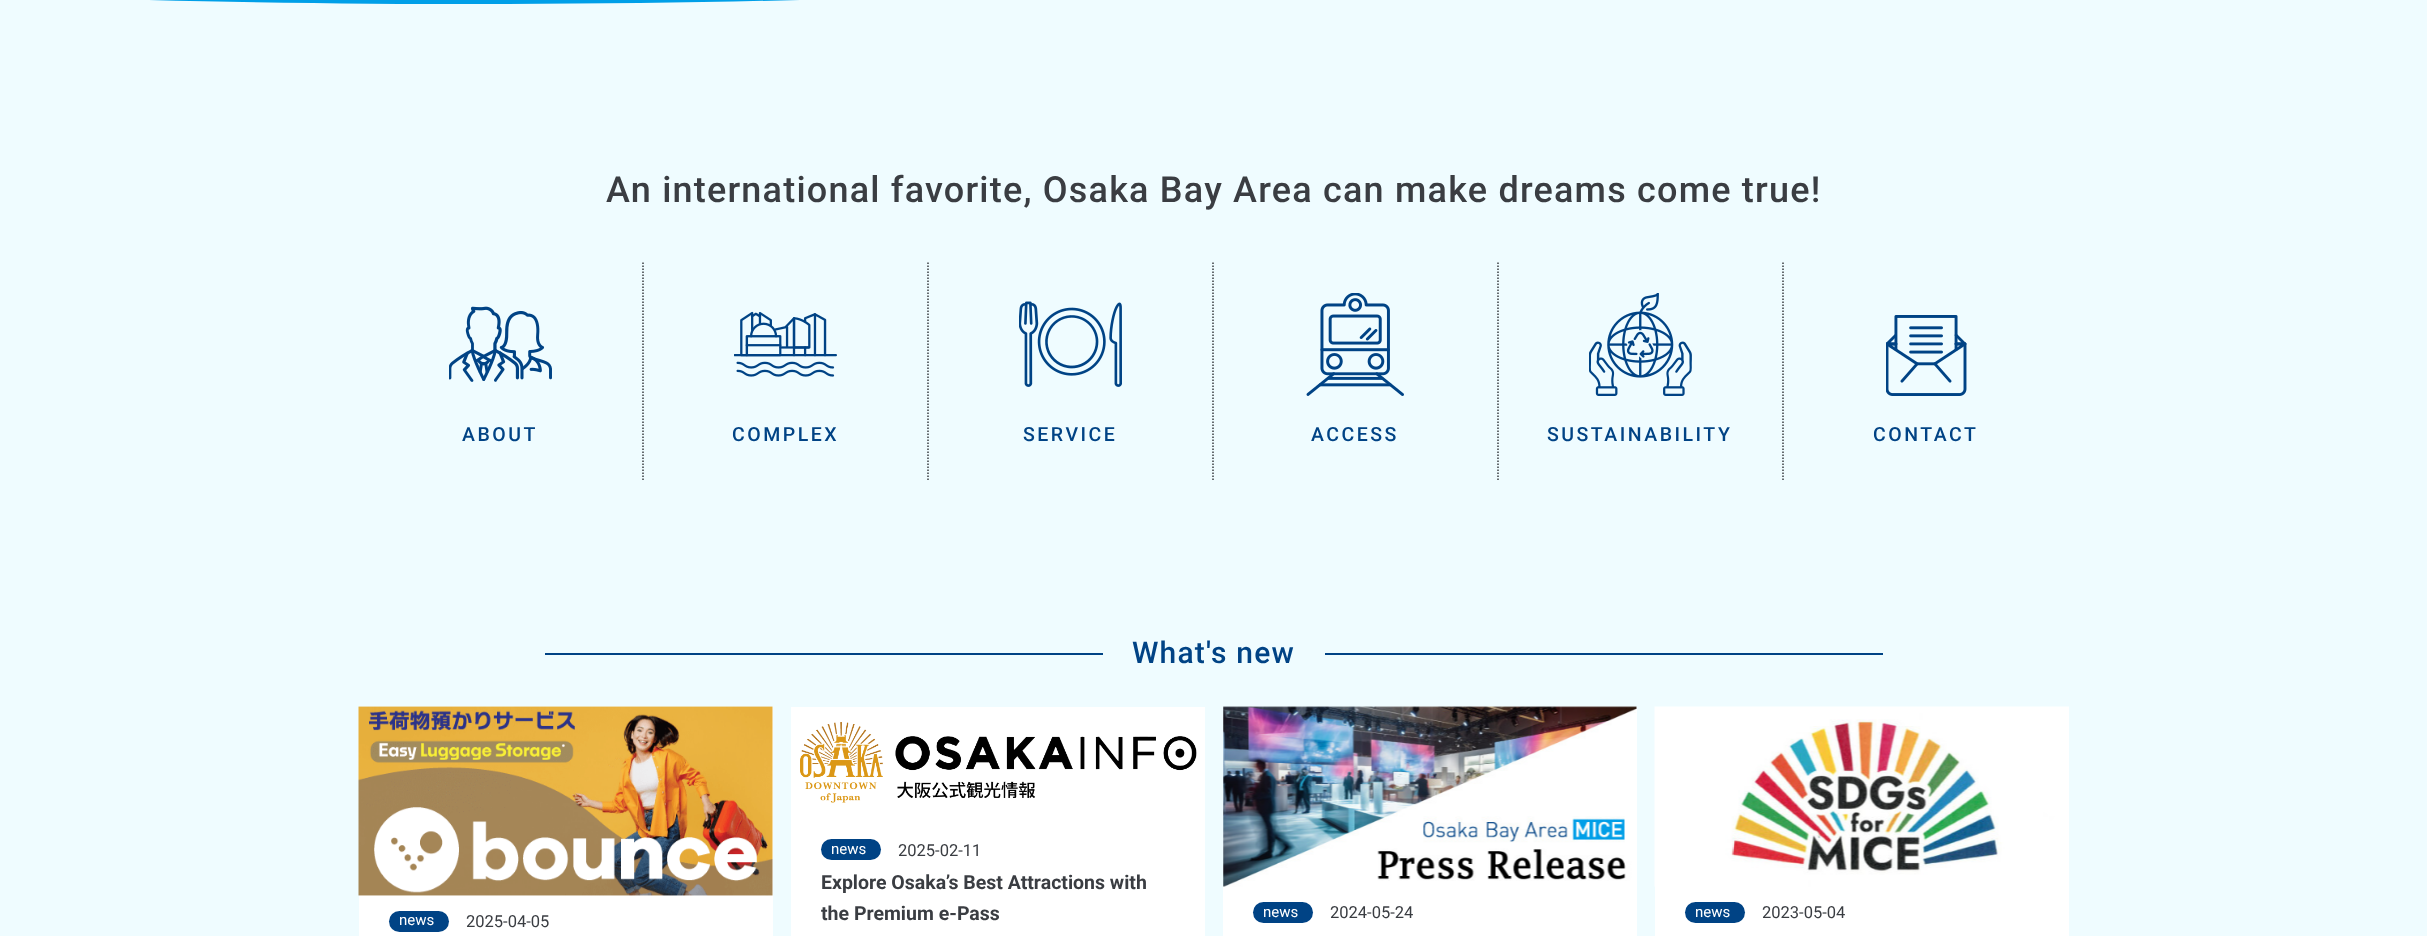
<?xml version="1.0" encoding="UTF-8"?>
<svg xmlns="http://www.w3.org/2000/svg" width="2427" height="936">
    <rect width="100%" height="100%" fill="#FFFFFF"/>
    <path d="M 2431 -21 C 1547 4 737 -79 -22 -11 L -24 34 H 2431 C 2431 34 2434 -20 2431 -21 Z" fill="#009FE8"/>
    <path d="M 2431 -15 C 1440 -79 1165 36 -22 -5 L -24 40 H 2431 C 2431 40 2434 -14 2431 -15 Z" fill="#EFFCFF"/>
    <rect x="0" y="40" width="2427" height="896" fill="#EFFCFF"/>
    <text x="606" y="202" font-family="Roboto" font-size="36" font-weight="500" letter-spacing="1.2" fill="#3A3D42">An international favorite, Osaka Bay Area can make dreams come true!</text>
    <path d="M 643 262.5 V 480" fill="none" stroke="#3A3D42" stroke-width="1.5" stroke-dasharray="1.5 1.5"/>
    <image x="449" y="306" width="103" height="76" href="img_01.png"/>
    <text x="462" y="441" font-family="Roboto" font-size="19.5" font-weight="500" letter-spacing="2.5" fill="#004385">ABOUT</text>
    <path d="M 928 262.5 V 480" fill="none" stroke="#3A3D42" stroke-width="1.5" stroke-dasharray="1.5 1.5"/>
    <image x="734" y="311" width="103" height="66" href="img_02.png"/>
    <text x="732" y="441" font-family="Roboto" font-size="19.5" font-weight="500" letter-spacing="2.5" fill="#004385">COMPLEX</text>
    <path d="M 1213 262.5 V 480" fill="none" stroke="#3A3D42" stroke-width="1.5" stroke-dasharray="1.5 1.5"/>
    <image x="1019" y="301" width="103" height="86" href="img_03.png"/>
    <text x="1023" y="441" font-family="Roboto" font-size="19.5" font-weight="500" letter-spacing="2.5" fill="#004385">SERVICE</text>
    <path d="M 1498 262.5 V 480" fill="none" stroke="#3A3D42" stroke-width="1.5" stroke-dasharray="1.5 1.5"/>
    <image x="1306" y="293" width="98" height="103" href="img_04.png"/>
    <text x="1311" y="441" font-family="Roboto" font-size="19.5" font-weight="500" letter-spacing="2.5" fill="#004385">ACCESS</text>
    <path d="M 1783 262.5 V 480" fill="none" stroke="#3A3D42" stroke-width="1.5" stroke-dasharray="1.5 1.5"/>
    <image x="1589" y="293" width="103" height="103" href="img_05.png"/>
    <text x="1547" y="441" font-family="Roboto" font-size="19.5" font-weight="500" letter-spacing="2.5" fill="#004385">SUSTAINABILITY</text>
    <image x="1886" y="315" width="81" height="81" href="img_06.png"/>
    <text x="1873" y="441" font-family="Roboto" font-size="19.5" font-weight="500" letter-spacing="2.5" fill="#004385">CONTACT</text>
    <rect x="545" y="653" width="558" height="2" fill="#004385"/>
    <text x="1132" y="663" font-family="Roboto" font-size="30" font-weight="500" letter-spacing="1.2" fill="#004385">What's new</text>
    <rect x="1325" y="653" width="558" height="2" fill="#004385"/>
    <rect x="791" y="707" width="414" height="229" fill="#FFFFFF"/>
    <image x="800" y="722" width="397" height="81" href="img_07.png"/>
    <rect x="821" y="839" width="60" height="21" rx="10.5" fill="#004385"/>
    <text x="831" y="854" font-family="Roboto" font-size="15" fill="#FFFFFF">news</text>
    <text x="898" y="856" font-family="Roboto" font-size="16.5" fill="#3A3D42">2025-02-11</text>
    <text font-family="Roboto" font-size="19.5" font-weight="700" fill="#3A3D42">
        <tspan x="821" y="889">Explore Osaka’s Best Attractions with</tspan>
        <tspan x="821" y="920">the Premium e-Pass</tspan>
    </text>
    <rect x="1223" y="707" width="414" height="229" fill="#FFFFFF"/>
    <image x="1223" y="706" width="414" height="181" href="img_08.png"/>
    <rect x="1253" y="902" width="60" height="21" rx="10.5" fill="#004385"/>
    <text x="1263" y="917" font-family="Roboto" font-size="15" fill="#FFFFFF">news</text>
    <text x="1330" y="918" font-family="Roboto" font-size="16.5" fill="#3A3D42">2024-05-24</text>
    <rect x="1655" y="886" width="414" height="50" fill="#FFFFFF"/>
    <image x="1654" y="706" width="415" height="181" href="img_09.png"/>
    <rect x="1685" y="902" width="60" height="21" rx="10.5" fill="#004385"/>
    <text x="1695" y="917" font-family="Roboto" font-size="15" fill="#FFFFFF">news</text>
    <text x="1762" y="918" font-family="Roboto" font-size="16.5" fill="#3A3D42">2023-05-04</text>
    <rect x="359" y="707" width="414" height="229" fill="#FFFFFF"/>
    <image x="358" y="706" width="415" height="190" href="img_10.png"/>
    <rect x="389" y="911" width="60" height="21" rx="10.5" fill="#004385"/>
    <text x="399" y="925" font-family="Roboto" font-size="15" fill="#FFFFFF">news</text>
    <text x="466" y="927" font-family="Roboto" font-size="16.5" fill="#3A3D42">2025-04-05</text>
</svg>
